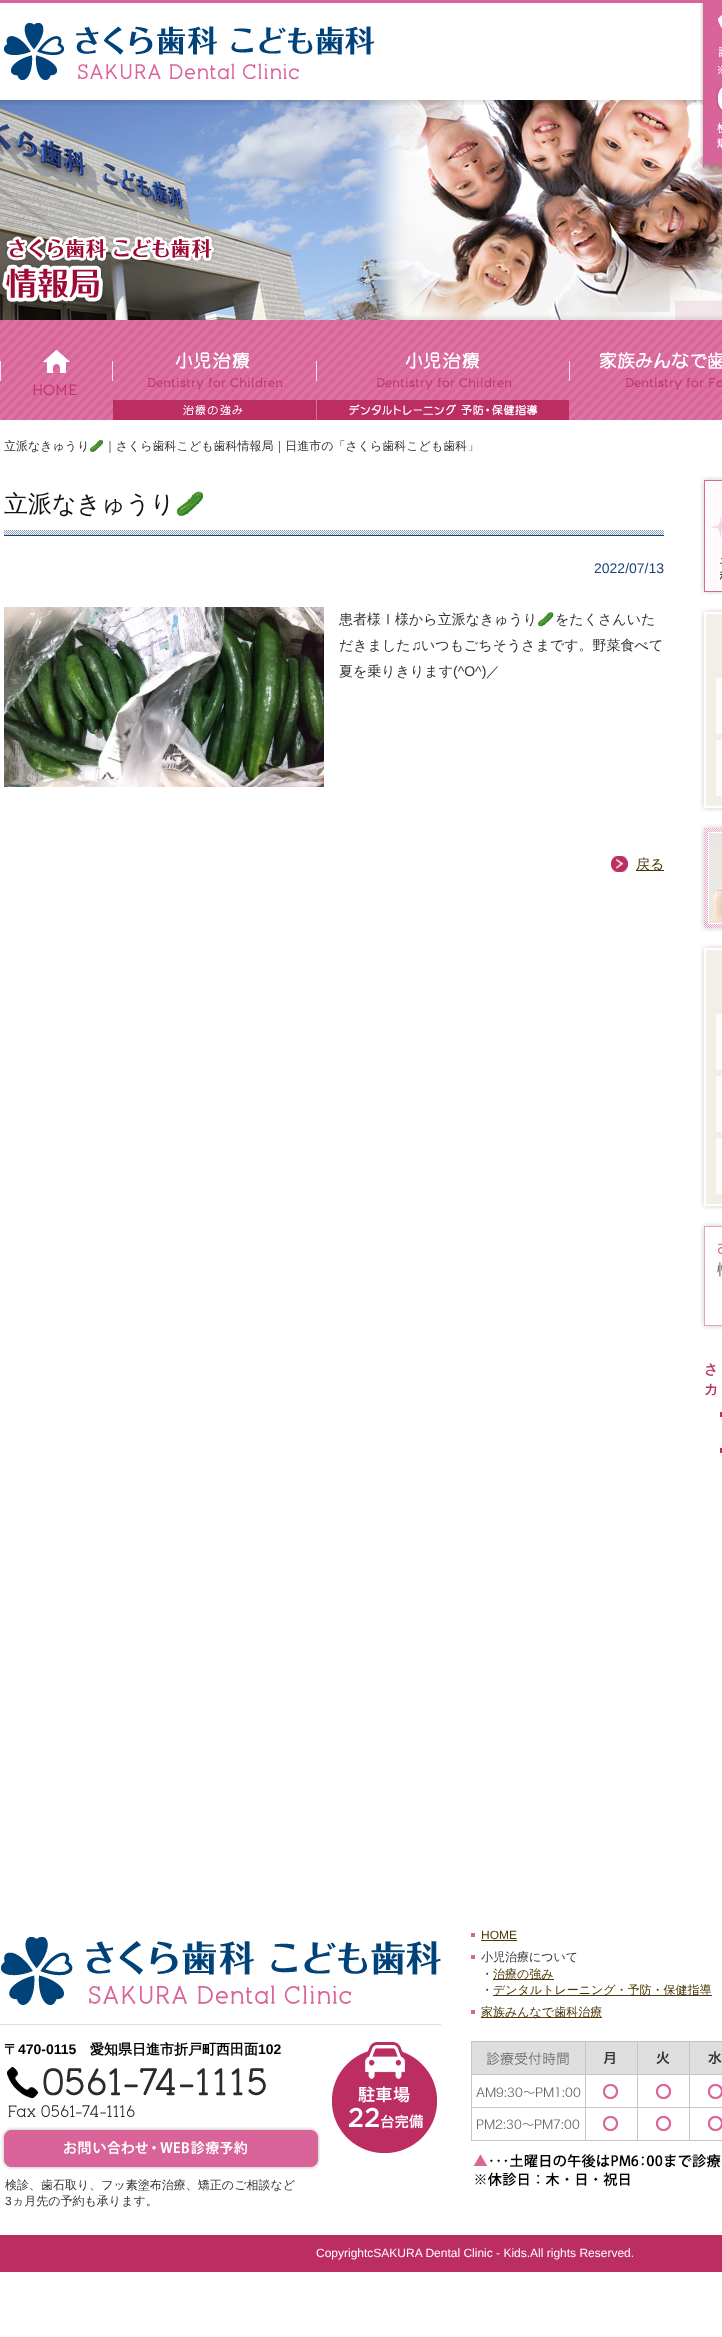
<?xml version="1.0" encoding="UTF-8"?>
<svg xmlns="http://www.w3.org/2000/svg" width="722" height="2337">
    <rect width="100%" height="100%" fill="#FFFFFF"/>
    <image x="0" y="100" width="722" height="220" href="img_08.png"/>
    <image x="0" y="0" width="722" height="105" href="img_01.png"/>
    <image x="4" y="23" width="371" height="57" href="img_02.png"/>
    <image x="700" y="3" width="22" height="169" href="img_03.png"/>
    <image x="718" y="15" width="4" height="14" href="img_04.png"/>
    <image x="717" y="47" width="5" height="27" href="img_05.png"/>
    <image x="716" y="84" width="6" height="29" href="img_06.png"/>
    <image x="717" y="122" width="5" height="27" href="img_07.png"/>
    <image x="1" y="234" width="215" height="69" href="img_09.png"/>
    <image x="0" y="320" width="722" height="100" href="img_10.png"/>
    <image x="0" y="350" width="113" height="46" href="img_11.png"/>
    <image x="113" y="352" width="204" height="68" href="img_12.png"/>
    <image x="317" y="352" width="253" height="68" href="img_13.png"/>
    <image x="599" y="352" width="123" height="38" href="img_14.png"/>
    <text x="4" y="450" font-family="WenQuanYi Zen Hei" font-size="12" font-weight="500" fill="#333333">立派なきゅうり</text>
    <text x="89" y="450" font-family="Noto Color Emoji" font-size="12" fill="#333333">🥒</text>
    <text x="104" y="450" font-family="WenQuanYi Zen Hei" font-size="12" font-weight="500" fill="#333333">｜さくら歯科こども歯科情報局｜日進市の「さくら歯科こども歯科」</text>
    <image x="4" y="530" width="660" height="6" href="img_15.png"/>
    <text x="4" y="512" font-family="WenQuanYi Zen Hei" font-size="24" font-weight="500" fill="#121212">立派なきゅうり</text>
    <text x="175" y="512" font-family="Noto Color Emoji" font-size="24" fill="#121212">🥒</text>
    <text x="594" y="573" font-family="Liberation Sans" font-size="14" fill="#18427B">2022/07/13</text>
    <image x="4" y="607" width="320" height="180" href="img_16.png"/>
    <text x="339" y="624" font-family="WenQuanYi Zen Hei" font-size="14" font-weight="500" fill="#333333">患者様Ⅰ様から立派なきゅうり</text>
    <text x="537" y="624" font-family="Noto Color Emoji" font-size="14" fill="#333333">🥒</text>
    <text x="555" y="624" font-family="WenQuanYi Zen Hei" font-size="14" font-weight="500" fill="#333333">をたくさんいた</text>
    <text x="339" y="650" font-family="WenQuanYi Zen Hei" font-size="14" font-weight="500" fill="#333333">だきました</text>
    <text x="411" y="650" font-family="Liberation Sans" font-size="14" fill="#333333">♫</text>
    <text x="421" y="650" font-family="WenQuanYi Zen Hei" font-size="14" font-weight="500" fill="#333333">いつもごちそうさまです。野菜食べて</text>
    <text x="339" y="676" font-family="WenQuanYi Zen Hei" font-size="14" font-weight="500" fill="#333333">夏を乗りきります</text>
    <text x="453" y="676" font-family="Liberation Sans" font-size="14" fill="#333333">(^O^)</text>
    <text x="486" y="676" font-family="WenQuanYi Zen Hei" font-size="14" font-weight="500" fill="#333333">／</text>
    <image x="611" y="856" width="17" height="16" href="img_17.png"/>
    <rect x="636" y="870" width="28" height="1" fill="#4C3806"/>
    <text x="636" y="869" font-family="WenQuanYi Zen Hei" font-size="14" font-weight="500" fill="#4C3806">戻る</text>
    <image x="700" y="476" width="22" height="119" href="img_18.png"/>
    <image x="700" y="608" width="22" height="204" href="img_19.png"/>
    <rect x="716" y="678" width="6" height="56" fill="#FCFCFA"/>
    <rect x="716" y="740" width="6" height="56" fill="#FCFCFA"/>
    <image x="700" y="824" width="22" height="108" href="img_20.png"/>
    <image x="700" y="944" width="22" height="266" href="img_21.png"/>
    <rect x="716" y="1014" width="6" height="56" fill="#FCFCFA"/>
    <rect x="716" y="1076" width="6" height="56" fill="#FCFCFA"/>
    <rect x="716" y="1138" width="6" height="56" fill="#FCFCFA"/>
    <image x="700" y="1222" width="22" height="108" href="img_22.png"/>
    <text font-family="WenQuanYi Zen Hei" font-size="14" font-weight="700" fill="#BA2C60">
        <tspan x="704" y="1374">さ</tspan>
        <tspan x="704" y="1394">カ</tspan>
    </text>
    <rect x="720" y="1412" width="2" height="5" fill="#BC2D62"/>
    <rect x="720" y="1448" width="2" height="5" fill="#BC2D62"/>
    <rect x="471" y="1933" width="4" height="4" fill="#D96499"/>
    <text x="481" y="1939" font-family="Liberation Sans" font-size="12" fill="#4C3806">HOME</text>
    <rect x="481" y="1940" width="36" height="1" fill="#4C3806"/>
    <rect x="471" y="1955" width="4" height="4" fill="#D96499"/>
    <text font-family="WenQuanYi Zen Hei" font-size="12" font-weight="500" fill="#333333">
        <tspan x="481" y="1961">小児治療について</tspan>
        <tspan x="481" y="1978">・</tspan>
    </text>
    <rect x="493" y="1979" width="61" height="1" fill="#4C3806"/>
    <text x="493" y="1978" font-family="WenQuanYi Zen Hei" font-size="12" font-weight="500" fill="#4C3806">治療の強み</text>
    <text x="481" y="1994" font-family="WenQuanYi Zen Hei" font-size="12" font-weight="500" fill="#333333">・</text>
    <rect x="493" y="1995" width="219" height="1" fill="#4C3806"/>
    <text x="493" y="1994" font-family="WenQuanYi Zen Hei" font-size="12" font-weight="500" fill="#4C3806">デンタルトレーニング・予防・保健指導</text>
    <rect x="471" y="2010" width="4" height="4" fill="#D96499"/>
    <rect x="481" y="2017" width="121" height="1" fill="#4C3806"/>
    <text x="481" y="2016" font-family="WenQuanYi Zen Hei" font-size="12" font-weight="500" fill="#4C3806">家族みんなで歯科治療</text>
    <image x="471" y="2041" width="251" height="145" href="img_23.png"/>
    <image x="332" y="2042" width="105" height="111" href="img_24.png"/>
    <image x="0" y="1937" width="441" height="88" href="img_25.png"/>
    <text x="4" y="2054" font-family="WenQuanYi Zen Hei" font-size="14" font-weight="700" fill="#000000">〒</text>
    <text x="18" y="2054" font-family="Liberation Sans" font-size="14" font-weight="700" fill="#000000">470-0115</text>
    <text x="90" y="2054" font-family="WenQuanYi Zen Hei" font-size="14" font-weight="700" fill="#000000">愛知県日進市折戸町西田面</text>
    <text x="258" y="2054" font-family="Liberation Sans" font-size="14" font-weight="700" fill="#000000">102</text>
    <image x="7" y="2067" width="259" height="50" href="img_26.png"/>
    <image x="1" y="2127" width="319" height="43" href="img_27.png"/>
    <text x="5" y="2189" font-family="WenQuanYi Zen Hei" font-size="12" font-weight="500" fill="#333333">検診、歯石取り、フッ素塗布治療、矯正のご相談など</text>
    <text x="5" y="2205" font-family="Liberation Sans" font-size="12" fill="#333333">3</text>
    <text x="12" y="2205" font-family="WenQuanYi Zen Hei" font-size="12" font-weight="500" fill="#333333">ヵ月先の予約も承ります。</text>
    <rect x="0" y="2235" width="722" height="37" fill="#BC2D62"/>
    <text x="316" y="2257" font-family="Liberation Sans" font-size="12" fill="#FFFFFF">CopyrightcSAKURA Dental Clinic - Kids.All rights Reserved.</text>
</svg>
